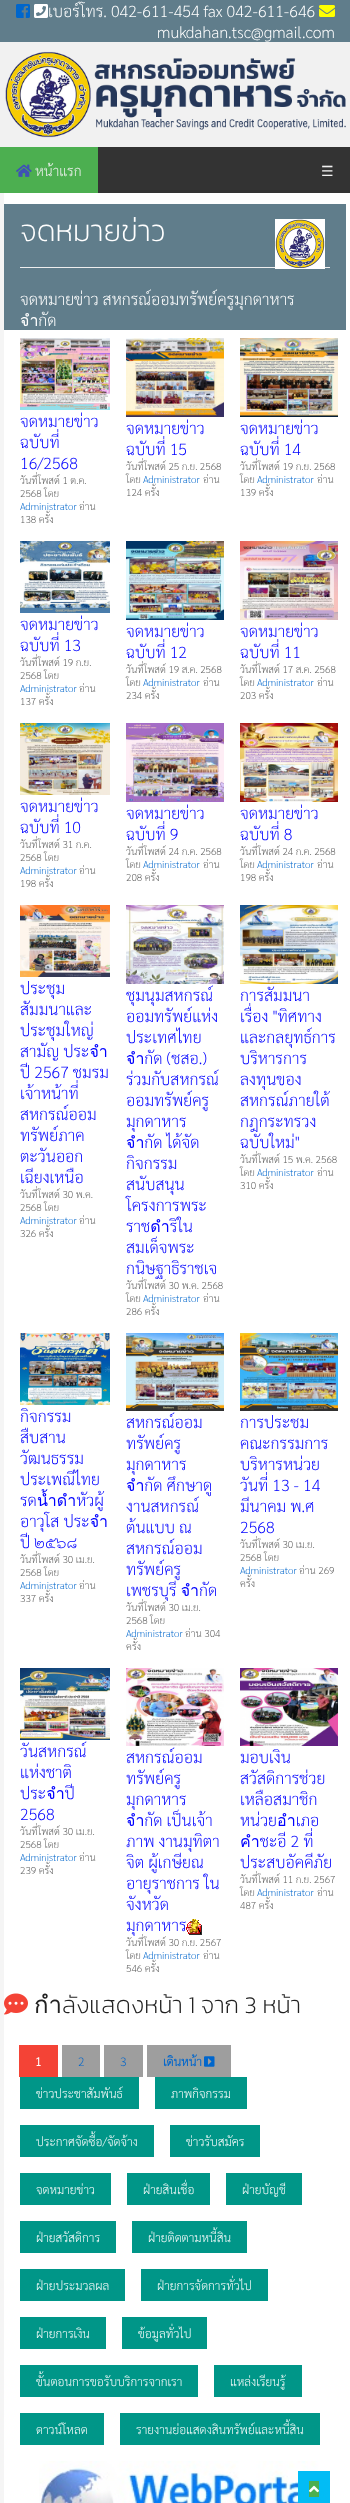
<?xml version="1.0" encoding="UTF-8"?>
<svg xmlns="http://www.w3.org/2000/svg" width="350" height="2503">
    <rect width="100%" height="100%" fill="#F5F5F5"/>
    <rect x="0" y="0" width="350" height="42" fill="#607D8B"/>
    <image x="16" y="4" width="14" height="14" href="img_01.png"/>
    <image x="34" y="4" width="14" height="14" href="img_02.png"/>
    <text x="48" y="17" font-family="Sarabun" font-size="16" font-weight="200" fill="#FFFFFF">เบอร์โทร. 042-611-454 fax 042-611-646</text>
    <image x="319" y="5" width="16" height="12" href="img_03.png"/>
    <text x="157" y="38" font-family="Sarabun" font-size="16" font-weight="200" fill="#FFFFFF">mukdahan.tsc@gmail.com</text>
    <rect x="0" y="42" width="350" height="105" fill="#F1F1F1"/>
    <image x="5" y="51" width="341" height="87" href="img_04.png"/>
    <rect x="98" y="147" width="252" height="46" fill="#333333"/>
    <rect x="0" y="147" width="98" height="46" fill="#4CAF50"/>
    <image x="16" y="164" width="16" height="13" href="img_05.png"/>
    <text x="35" y="176" font-family="Sarabun" font-size="14" font-weight="200" fill="#F2F2F2">หน้าแรก</text>
    <text x="321" y="176" font-family="DejaVu Sans" font-size="14" fill="#F2F2F2">☰</text>
    <rect x="4" y="193" width="346" height="2310" fill="#FFFFFF"/>
    <rect x="4" y="204" width="342" height="126" fill="#607D8B"/>
    <text x="20" y="241" font-family="Kanit" font-size="30" font-weight="200" fill="#FFFFFF">จดหมายข่าว</text>
    <rect x="20" y="267" width="310" height="1" fill="#EEEEEE"/>
    <image x="275" y="219" width="50" height="50" href="img_06.png"/>
    <text font-family="Sarabun" font-size="16" font-weight="200" fill="#FFFFFF">
        <tspan x="20" y="305">จดหมายข่าว สหกรณ์ออมทรัพย์ครูมุกดาหาร</tspan>
        <tspan x="20" y="326">จำกัด</tspan>
    </text>
    <image x="20" y="338" width="90" height="72" href="img_07.png"/>
    <text font-family="Sarabun" font-size="16" font-weight="200" fill="#0000FF">
        <tspan x="20" y="427">จดหมายข่าว</tspan>
        <tspan x="20" y="448">ฉบับที่</tspan>
        <tspan x="20" y="469">16/2568</tspan>
    </text>
    <text font-family="Sarabun" font-size="10" font-weight="200" fill="#606060">
        <tspan x="20" y="484">วันที่โพสต์ 1 ต.ค.</tspan>
        <tspan x="20" y="497">2568 โดย</tspan>
    </text>
    <text x="20" y="510" font-family="Sarabun" font-size="10" font-weight="200" fill="#0066CC">Administrator</text>
    <text x="79" y="510" font-family="Sarabun" font-size="10" font-weight="200" fill="#606060">อ่าน</text>
    <text x="20" y="523" font-family="Sarabun" font-size="10" font-weight="200" fill="#606060">138 ครั้ง</text>
    <image x="126" y="338" width="98" height="79" href="img_08.png"/>
    <text font-family="Sarabun" font-size="16" font-weight="200" fill="#0000FF">
        <tspan x="126" y="434">จดหมายข่าว</tspan>
        <tspan x="126" y="455">ฉบับที่ 15</tspan>
    </text>
    <text font-family="Sarabun" font-size="10" font-weight="200" fill="#606060">
        <tspan x="126" y="470">วันที่โพสต์ 25 ก.ย. 2568</tspan>
        <tspan x="126" y="483">โดย</tspan>
    </text>
    <text x="143" y="483" font-family="Sarabun" font-size="10" font-weight="200" fill="#0066CC">Administrator</text>
    <text x="203" y="483" font-family="Sarabun" font-size="10" font-weight="200" fill="#606060">อ่าน</text>
    <text x="126" y="496" font-family="Sarabun" font-size="10" font-weight="200" fill="#606060">124 ครั้ง</text>
    <image x="240" y="338" width="98" height="79" href="img_09.png"/>
    <text font-family="Sarabun" font-size="16" font-weight="200" fill="#0000FF">
        <tspan x="240" y="434">จดหมายข่าว</tspan>
        <tspan x="240" y="455">ฉบับที่ 14</tspan>
    </text>
    <text font-family="Sarabun" font-size="10" font-weight="200" fill="#606060">
        <tspan x="240" y="470">วันที่โพสต์ 19 ก.ย. 2568</tspan>
        <tspan x="240" y="483">โดย</tspan>
    </text>
    <text x="257" y="483" font-family="Sarabun" font-size="10" font-weight="200" fill="#0066CC">Administrator</text>
    <text x="317" y="483" font-family="Sarabun" font-size="10" font-weight="200" fill="#606060">อ่าน</text>
    <text x="240" y="496" font-family="Sarabun" font-size="10" font-weight="200" fill="#606060">139 ครั้ง</text>
    <image x="20" y="541" width="90" height="72" href="img_10.png"/>
    <text font-family="Sarabun" font-size="16" font-weight="200" fill="#0000FF">
        <tspan x="20" y="630">จดหมายข่าว</tspan>
        <tspan x="20" y="651">ฉบับที่ 13</tspan>
    </text>
    <text font-family="Sarabun" font-size="10" font-weight="200" fill="#606060">
        <tspan x="20" y="666">วันที่โพสต์ 19 ก.ย.</tspan>
        <tspan x="20" y="679">2568 โดย</tspan>
    </text>
    <text x="20" y="692" font-family="Sarabun" font-size="10" font-weight="200" fill="#0066CC">Administrator</text>
    <text x="79" y="692" font-family="Sarabun" font-size="10" font-weight="200" fill="#606060">อ่าน</text>
    <text x="20" y="705" font-family="Sarabun" font-size="10" font-weight="200" fill="#606060">137 ครั้ง</text>
    <image x="126" y="541" width="98" height="79" href="img_11.png"/>
    <text font-family="Sarabun" font-size="16" font-weight="200" fill="#0000FF">
        <tspan x="126" y="637">จดหมายข่าว</tspan>
        <tspan x="126" y="658">ฉบับที่ 12</tspan>
    </text>
    <text font-family="Sarabun" font-size="10" font-weight="200" fill="#606060">
        <tspan x="126" y="673">วันที่โพสต์ 19 ส.ค. 2568</tspan>
        <tspan x="126" y="686">โดย</tspan>
    </text>
    <text x="143" y="686" font-family="Sarabun" font-size="10" font-weight="200" fill="#0066CC">Administrator</text>
    <text x="203" y="686" font-family="Sarabun" font-size="10" font-weight="200" fill="#606060">อ่าน</text>
    <text x="126" y="699" font-family="Sarabun" font-size="10" font-weight="200" fill="#606060">234 ครั้ง</text>
    <image x="240" y="541" width="98" height="79" href="img_12.png"/>
    <text font-family="Sarabun" font-size="16" font-weight="200" fill="#0000FF">
        <tspan x="240" y="637">จดหมายข่าว</tspan>
        <tspan x="240" y="658">ฉบับที่ 11</tspan>
    </text>
    <text font-family="Sarabun" font-size="10" font-weight="200" fill="#606060">
        <tspan x="240" y="673">วันที่โพสต์ 17 ส.ค. 2568</tspan>
        <tspan x="240" y="686">โดย</tspan>
    </text>
    <text x="257" y="686" font-family="Sarabun" font-size="10" font-weight="200" fill="#0066CC">Administrator</text>
    <text x="317" y="686" font-family="Sarabun" font-size="10" font-weight="200" fill="#606060">อ่าน</text>
    <text x="240" y="699" font-family="Sarabun" font-size="10" font-weight="200" fill="#606060">203 ครั้ง</text>
    <image x="20" y="723" width="90" height="72" href="img_13.png"/>
    <text font-family="Sarabun" font-size="16" font-weight="200" fill="#0000FF">
        <tspan x="20" y="812">จดหมายข่าว</tspan>
        <tspan x="20" y="833">ฉบับที่ 10</tspan>
    </text>
    <text font-family="Sarabun" font-size="10" font-weight="200" fill="#606060">
        <tspan x="20" y="848">วันที่โพสต์ 31 ก.ค.</tspan>
        <tspan x="20" y="861">2568 โดย</tspan>
    </text>
    <text x="20" y="874" font-family="Sarabun" font-size="10" font-weight="200" fill="#0066CC">Administrator</text>
    <text x="79" y="874" font-family="Sarabun" font-size="10" font-weight="200" fill="#606060">อ่าน</text>
    <text x="20" y="887" font-family="Sarabun" font-size="10" font-weight="200" fill="#606060">198 ครั้ง</text>
    <image x="126" y="723" width="98" height="79" href="img_14.png"/>
    <text font-family="Sarabun" font-size="16" font-weight="200" fill="#0000FF">
        <tspan x="126" y="819">จดหมายข่าว</tspan>
        <tspan x="126" y="840">ฉบับที่ 9</tspan>
    </text>
    <text font-family="Sarabun" font-size="10" font-weight="200" fill="#606060">
        <tspan x="126" y="855">วันที่โพสต์ 24 ก.ค. 2568</tspan>
        <tspan x="126" y="868">โดย</tspan>
    </text>
    <text x="143" y="868" font-family="Sarabun" font-size="10" font-weight="200" fill="#0066CC">Administrator</text>
    <text x="203" y="868" font-family="Sarabun" font-size="10" font-weight="200" fill="#606060">อ่าน</text>
    <text x="126" y="881" font-family="Sarabun" font-size="10" font-weight="200" fill="#606060">208 ครั้ง</text>
    <image x="240" y="723" width="98" height="79" href="img_15.png"/>
    <text font-family="Sarabun" font-size="16" font-weight="200" fill="#0000FF">
        <tspan x="240" y="819">จดหมายข่าว</tspan>
        <tspan x="240" y="840">ฉบับที่ 8</tspan>
    </text>
    <text font-family="Sarabun" font-size="10" font-weight="200" fill="#606060">
        <tspan x="240" y="855">วันที่โพสต์ 24 ก.ค. 2568</tspan>
        <tspan x="240" y="868">โดย</tspan>
    </text>
    <text x="257" y="868" font-family="Sarabun" font-size="10" font-weight="200" fill="#0066CC">Administrator</text>
    <text x="317" y="868" font-family="Sarabun" font-size="10" font-weight="200" fill="#606060">อ่าน</text>
    <text x="240" y="881" font-family="Sarabun" font-size="10" font-weight="200" fill="#606060">198 ครั้ง</text>
    <image x="20" y="905" width="90" height="72" href="img_16.png"/>
    <text font-family="Sarabun" font-size="16" font-weight="200" fill="#0000FF">
        <tspan x="20" y="994">ประชุม</tspan>
        <tspan x="20" y="1015">สัมมนาและ</tspan>
        <tspan x="20" y="1036">ประชุมใหญ่</tspan>
        <tspan x="20" y="1057">สามัญ ประจำ</tspan>
        <tspan x="20" y="1078">ปี 2567 ชมรม</tspan>
        <tspan x="20" y="1099">เจ้าหน้าที่</tspan>
        <tspan x="20" y="1120">สหกรณ์ออม</tspan>
        <tspan x="20" y="1141">ทรัพย์ภาค</tspan>
        <tspan x="20" y="1162">ตะวันออก</tspan>
        <tspan x="20" y="1183">เฉียงเหนือ</tspan>
    </text>
    <text font-family="Sarabun" font-size="10" font-weight="200" fill="#606060">
        <tspan x="20" y="1198">วันที่โพสต์ 30 พ.ค.</tspan>
        <tspan x="20" y="1211">2568 โดย</tspan>
    </text>
    <text x="20" y="1224" font-family="Sarabun" font-size="10" font-weight="200" fill="#0066CC">Administrator</text>
    <text x="79" y="1224" font-family="Sarabun" font-size="10" font-weight="200" fill="#606060">อ่าน</text>
    <text x="20" y="1237" font-family="Sarabun" font-size="10" font-weight="200" fill="#606060">326 ครั้ง</text>
    <image x="126" y="905" width="98" height="79" href="img_17.png"/>
    <text font-family="Sarabun" font-size="16" font-weight="200" fill="#0000FF">
        <tspan x="126" y="1001">ชุมนุมสหกรณ์</tspan>
        <tspan x="126" y="1022">ออมทรัพย์แห่ง</tspan>
        <tspan x="126" y="1043">ประเทศไทย</tspan>
        <tspan x="126" y="1064">จำกัด (ชสอ.)</tspan>
        <tspan x="126" y="1085">ร่วมกับสหกรณ์</tspan>
        <tspan x="126" y="1106">ออมทรัพย์ครู</tspan>
        <tspan x="126" y="1127">มุกดาหาร</tspan>
        <tspan x="126" y="1148">จำกัด ได้จัด</tspan>
        <tspan x="126" y="1169">กิจกรรม</tspan>
        <tspan x="126" y="1190">สนับสนุน</tspan>
        <tspan x="126" y="1211">โครงการพระ</tspan>
        <tspan x="126" y="1232">ราชดำริใน</tspan>
        <tspan x="126" y="1253">สมเด็จพระ</tspan>
        <tspan x="126" y="1274">กนิษฐาธิราชเจ</tspan>
    </text>
    <text font-family="Sarabun" font-size="10" font-weight="200" fill="#606060">
        <tspan x="126" y="1289">วันที่โพสต์ 30 พ.ค. 2568</tspan>
        <tspan x="126" y="1302">โดย</tspan>
    </text>
    <text x="143" y="1302" font-family="Sarabun" font-size="10" font-weight="200" fill="#0066CC">Administrator</text>
    <text x="203" y="1302" font-family="Sarabun" font-size="10" font-weight="200" fill="#606060">อ่าน</text>
    <text x="126" y="1315" font-family="Sarabun" font-size="10" font-weight="200" fill="#606060">286 ครั้ง</text>
    <image x="240" y="905" width="98" height="79" href="img_18.png"/>
    <text font-family="Sarabun" font-size="16" font-weight="200" fill="#0000FF">
        <tspan x="240" y="1001">การสัมมนา</tspan>
        <tspan x="240" y="1022">เรื่อง "ทิศทาง</tspan>
        <tspan x="240" y="1043">และกลยุทธ์การ</tspan>
        <tspan x="240" y="1064">บริหารการ</tspan>
        <tspan x="240" y="1085">ลงทุนของ</tspan>
        <tspan x="240" y="1106">สหกรณ์ภายใต้</tspan>
        <tspan x="240" y="1127">กฎกระทรวง</tspan>
        <tspan x="240" y="1148">ฉบับใหม่"</tspan>
    </text>
    <text font-family="Sarabun" font-size="10" font-weight="200" fill="#606060">
        <tspan x="240" y="1163">วันที่โพสต์ 15 พ.ค. 2568</tspan>
        <tspan x="240" y="1176">โดย</tspan>
    </text>
    <text x="257" y="1176" font-family="Sarabun" font-size="10" font-weight="200" fill="#0066CC">Administrator</text>
    <text x="317" y="1176" font-family="Sarabun" font-size="10" font-weight="200" fill="#606060">อ่าน</text>
    <text x="240" y="1189" font-family="Sarabun" font-size="10" font-weight="200" fill="#606060">310 ครั้ง</text>
    <image x="20" y="1333" width="90" height="72" href="img_19.png"/>
    <text font-family="Sarabun" font-size="16" font-weight="200" fill="#0000FF">
        <tspan x="20" y="1422">กิจกรรม</tspan>
        <tspan x="20" y="1443">สืบสาน</tspan>
        <tspan x="20" y="1464">วัฒนธรรม</tspan>
        <tspan x="20" y="1485">ประเพณีไทย</tspan>
        <tspan x="20" y="1506">รดน้ำดำหัวผู้</tspan>
        <tspan x="20" y="1527">อาวุโส ประจำ</tspan>
        <tspan x="20" y="1548">ปี ๒๕๖๘</tspan>
    </text>
    <text font-family="Sarabun" font-size="10" font-weight="200" fill="#606060">
        <tspan x="20" y="1563">วันที่โพสต์ 30 เม.ย.</tspan>
        <tspan x="20" y="1576">2568 โดย</tspan>
    </text>
    <text x="20" y="1589" font-family="Sarabun" font-size="10" font-weight="200" fill="#0066CC">Administrator</text>
    <text x="79" y="1589" font-family="Sarabun" font-size="10" font-weight="200" fill="#606060">อ่าน</text>
    <text x="20" y="1602" font-family="Sarabun" font-size="10" font-weight="200" fill="#606060">337 ครั้ง</text>
    <image x="126" y="1333" width="98" height="78" href="img_20.png"/>
    <text font-family="Sarabun" font-size="16" font-weight="200" fill="#0000FF">
        <tspan x="126" y="1428">สหกรณ์ออม</tspan>
        <tspan x="126" y="1449">ทรัพย์ครู</tspan>
        <tspan x="126" y="1470">มุกดาหาร</tspan>
        <tspan x="126" y="1491">จำกัด ศึกษาดู</tspan>
        <tspan x="126" y="1512">งานสหกรณ์</tspan>
        <tspan x="126" y="1533">ต้นแบบ ณ</tspan>
        <tspan x="126" y="1554">สหกรณ์ออม</tspan>
        <tspan x="126" y="1575">ทรัพย์ครู</tspan>
        <tspan x="126" y="1596">เพชรบุรี จำกัด</tspan>
    </text>
    <text font-family="Sarabun" font-size="10" font-weight="200" fill="#606060">
        <tspan x="126" y="1611">วันที่โพสต์ 30 เม.ย.</tspan>
        <tspan x="126" y="1624">2568 โดย</tspan>
    </text>
    <text x="126" y="1637" font-family="Sarabun" font-size="10" font-weight="200" fill="#0066CC">Administrator</text>
    <text x="185" y="1637" font-family="Sarabun" font-size="10" font-weight="200" fill="#606060">อ่าน 304</text>
    <text x="126" y="1650" font-family="Sarabun" font-size="10" font-weight="200" fill="#606060">ครั้ง</text>
    <image x="240" y="1333" width="98" height="78" href="img_21.png"/>
    <text font-family="Sarabun" font-size="16" font-weight="200" fill="#0000FF">
        <tspan x="240" y="1428">การประชม</tspan>
        <tspan x="240" y="1449">คณะกรรมการ</tspan>
        <tspan x="240" y="1470">บริหารหน่วย</tspan>
        <tspan x="240" y="1491">วันที่ 13 - 14</tspan>
        <tspan x="240" y="1512">มีนาคม พ.ศ</tspan>
        <tspan x="240" y="1533">2568</tspan>
    </text>
    <text font-family="Sarabun" font-size="10" font-weight="200" fill="#606060">
        <tspan x="240" y="1548">วันที่โพสต์ 30 เม.ย.</tspan>
        <tspan x="240" y="1561">2568 โดย</tspan>
    </text>
    <text x="240" y="1574" font-family="Sarabun" font-size="10" font-weight="200" fill="#0066CC">Administrator</text>
    <text x="299" y="1574" font-family="Sarabun" font-size="10" font-weight="200" fill="#606060">อ่าน 269</text>
    <text x="240" y="1587" font-family="Sarabun" font-size="10" font-weight="200" fill="#606060">ครั้ง</text>
    <image x="20" y="1668" width="90" height="72" href="img_22.png"/>
    <text font-family="Sarabun" font-size="16" font-weight="200" fill="#0000FF">
        <tspan x="20" y="1757">วันสหกรณ์</tspan>
        <tspan x="20" y="1778">แห่งชาติ</tspan>
        <tspan x="20" y="1799">ประจำปี</tspan>
        <tspan x="20" y="1820">2568</tspan>
    </text>
    <text font-family="Sarabun" font-size="10" font-weight="200" fill="#606060">
        <tspan x="20" y="1835">วันที่โพสต์ 30 เม.ย.</tspan>
        <tspan x="20" y="1848">2568 โดย</tspan>
    </text>
    <text x="20" y="1861" font-family="Sarabun" font-size="10" font-weight="200" fill="#0066CC">Administrator</text>
    <text x="79" y="1861" font-family="Sarabun" font-size="10" font-weight="200" fill="#606060">อ่าน</text>
    <text x="20" y="1874" font-family="Sarabun" font-size="10" font-weight="200" fill="#606060">239 ครั้ง</text>
    <image x="126" y="1668" width="98" height="78" href="img_23.png"/>
    <text font-family="Sarabun" font-size="16" font-weight="200" fill="#0000FF">
        <tspan x="126" y="1763">สหกรณ์ออม</tspan>
        <tspan x="126" y="1784">ทรัพย์ครู</tspan>
        <tspan x="126" y="1805">มุกดาหาร</tspan>
        <tspan x="126" y="1826">จำกัด เป็นเจ้า</tspan>
        <tspan x="126" y="1847">ภาพ งานมุทิตา</tspan>
        <tspan x="126" y="1868">จิต ผู้เกษียณ</tspan>
        <tspan x="126" y="1889">อายุราชการ ใน</tspan>
        <tspan x="126" y="1910">จังหวัด</tspan>
        <tspan x="126" y="1931">มุกดาหาร</tspan>
    </text>
    <image x="186" y="1919" width="16" height="16" href="img_24.png"/>
    <text font-family="Sarabun" font-size="10" font-weight="200" fill="#606060">
        <tspan x="126" y="1946">วันที่โพสต์ 30 ก.ย. 2567</tspan>
        <tspan x="126" y="1959">โดย</tspan>
    </text>
    <text x="143" y="1959" font-family="Sarabun" font-size="10" font-weight="200" fill="#0066CC">Administrator</text>
    <text x="203" y="1959" font-family="Sarabun" font-size="10" font-weight="200" fill="#606060">อ่าน</text>
    <text x="126" y="1972" font-family="Sarabun" font-size="10" font-weight="200" fill="#606060">546 ครั้ง</text>
    <image x="240" y="1668" width="98" height="78" href="img_25.png"/>
    <text font-family="Sarabun" font-size="16" font-weight="200" fill="#0000FF">
        <tspan x="240" y="1763">มอบเงิน</tspan>
        <tspan x="240" y="1784">สวัสดิการช่วย</tspan>
        <tspan x="240" y="1805">เหลือสมาชิก</tspan>
        <tspan x="240" y="1826">หน่วยอำเภอ</tspan>
        <tspan x="240" y="1847">คำชะอี 2 ที่</tspan>
        <tspan x="240" y="1868">ประสบอัคคีภัย</tspan>
    </text>
    <text font-family="Sarabun" font-size="10" font-weight="200" fill="#606060">
        <tspan x="240" y="1883">วันที่โพสต์ 11 ก.ย. 2567</tspan>
        <tspan x="240" y="1896">โดย</tspan>
    </text>
    <text x="257" y="1896" font-family="Sarabun" font-size="10" font-weight="200" fill="#0066CC">Administrator</text>
    <text x="317" y="1896" font-family="Sarabun" font-size="10" font-weight="200" fill="#606060">อ่าน</text>
    <text x="240" y="1909" font-family="Sarabun" font-size="10" font-weight="200" fill="#606060">487 ครั้ง</text>
    <image x="4" y="1993" width="24" height="22" href="img_26.png"/>
    <text x="34" y="2013" font-family="Kanit" font-size="24" font-weight="200" fill="#212121">กำลังแสดงหน้า 1 จาก 3 หน้า</text>
    <rect x="19" y="2045" width="39" height="32" fill="#F44336"/>
    <text x="35" y="2066" font-family="Sarabun" font-size="12" font-weight="700" fill="#FFFFFF">1</text>
    <rect x="62" y="2045" width="38" height="32" fill="#9E9E9E"/>
    <text x="78" y="2066" font-family="Sarabun" font-size="12" font-weight="200" fill="#0066CC">2</text>
    <rect x="104" y="2045" width="39" height="32" fill="#9E9E9E"/>
    <text x="120" y="2066" font-family="Sarabun" font-size="12" font-weight="200" fill="#0066CC">3</text>
    <rect x="147" y="2045" width="84" height="32" fill="#9E9E9E"/>
    <text x="163" y="2066" font-family="Sarabun" font-size="12" font-weight="700" fill="#0066CC">เดินหน้า</text>
    <image x="204" y="2056" width="11" height="11" href="img_27.png"/>
    <rect x="20" y="2077" width="119" height="32" fill="#009688"/>
    <text x="36" y="2098" font-family="Sarabun" font-size="12" font-weight="200" fill="#FFFFFF">ข่าวประชาสัมพันธ์</text>
    <rect x="155" y="2077" width="92" height="32" fill="#009688"/>
    <text x="171" y="2098" font-family="Sarabun" font-size="12" font-weight="200" fill="#FFFFFF">ภาพกิจกรรม</text>
    <rect x="20" y="2125" width="134" height="32" fill="#009688"/>
    <text x="36" y="2146" font-family="Sarabun" font-size="12" font-weight="200" fill="#FFFFFF">ประกาศจัดซื้อ/จัดจ้าง</text>
    <rect x="170" y="2125" width="90" height="32" fill="#009688"/>
    <text x="186" y="2146" font-family="Sarabun" font-size="12" font-weight="200" fill="#FFFFFF">ข่าวรับสมัคร</text>
    <rect x="20" y="2173" width="91" height="32" fill="#009688"/>
    <text x="36" y="2194" font-family="Sarabun" font-size="12" font-weight="200" fill="#FFFFFF">จดหมายข่าว</text>
    <rect x="127" y="2173" width="83" height="32" fill="#009688"/>
    <text x="143" y="2194" font-family="Sarabun" font-size="12" font-weight="200" fill="#FFFFFF">ฝ่ายสินเชื่อ</text>
    <rect x="226" y="2173" width="76" height="32" fill="#009688"/>
    <text x="242" y="2194" font-family="Sarabun" font-size="12" font-weight="200" fill="#FFFFFF">ฝ่ายบัญชี</text>
    <rect x="20" y="2221" width="96" height="32" fill="#009688"/>
    <text x="36" y="2242" font-family="Sarabun" font-size="12" font-weight="200" fill="#FFFFFF">ฝ่ายสวัสดิการ</text>
    <rect x="132" y="2221" width="115" height="32" fill="#009688"/>
    <text x="148" y="2242" font-family="Sarabun" font-size="12" font-weight="200" fill="#FFFFFF">ฝ่ายติดตามหนี้สิน</text>
    <rect x="20" y="2269" width="105" height="32" fill="#009688"/>
    <text x="36" y="2290" font-family="Sarabun" font-size="12" font-weight="200" fill="#FFFFFF">ฝ่ายประมวลผล</text>
    <rect x="141" y="2269" width="127" height="32" fill="#009688"/>
    <text x="157" y="2290" font-family="Sarabun" font-size="12" font-weight="200" fill="#FFFFFF">ฝ่ายการจัดการทั่วไป</text>
    <rect x="20" y="2317" width="86" height="32" fill="#009688"/>
    <text x="36" y="2338" font-family="Sarabun" font-size="12" font-weight="200" fill="#FFFFFF">ฝ่ายการเงิน</text>
    <rect x="122" y="2317" width="85" height="32" fill="#009688"/>
    <text x="138" y="2338" font-family="Sarabun" font-size="12" font-weight="200" fill="#FFFFFF">ข้อมูลทั่วไป</text>
    <rect x="20" y="2365" width="178" height="32" fill="#009688"/>
    <text x="36" y="2386" font-family="Sarabun" font-size="12" font-weight="200" fill="#FFFFFF">ขั้นตอนการขอรับบริการจากเรา</text>
    <rect x="214" y="2365" width="88" height="32" fill="#009688"/>
    <text x="230" y="2386" font-family="Sarabun" font-size="12" font-weight="200" fill="#FFFFFF">แหล่งเรียนรู้</text>
    <rect x="20" y="2413" width="84" height="32" fill="#009688"/>
    <text x="36" y="2434" font-family="Sarabun" font-size="12" font-weight="200" fill="#FFFFFF">ดาวน์โหลด</text>
    <rect x="120" y="2413" width="200" height="32" fill="#009688"/>
    <text x="136" y="2434" font-family="Sarabun" font-size="12" font-weight="200" fill="#FFFFFF">รายงานย่อแสดงสินทรัพย์และหนี้สิน</text>
    <image x="39" y="2461" width="280" height="42" href="img_28.png"/>
    <rect x="298" y="2471" width="32" height="32" fill="#02BCF5"/>
    <rect x="309" y="2481" width="10" height="16" fill="#4CAF50"/>
    <image x="309" y="2485" width="10" height="8" href="img_29.png"/>
</svg>
